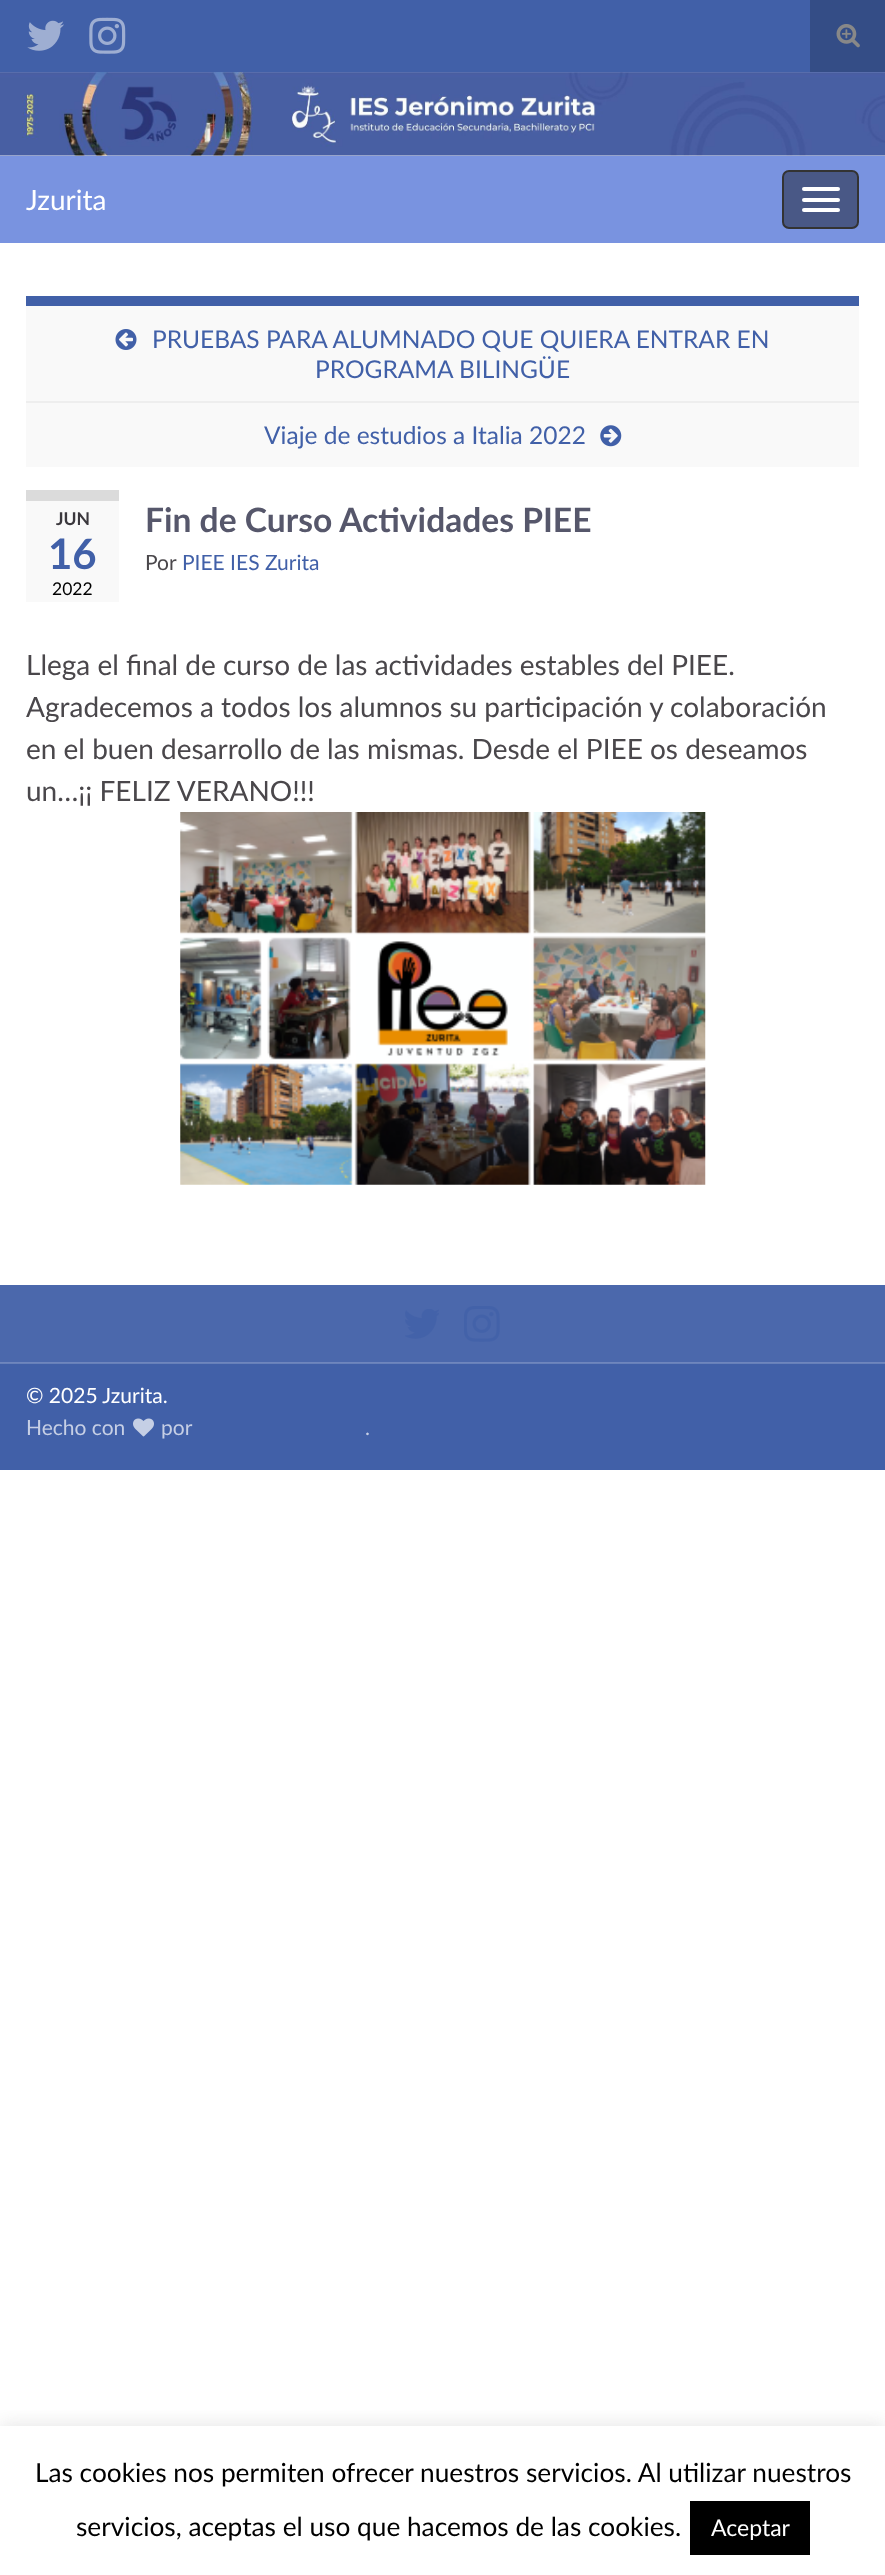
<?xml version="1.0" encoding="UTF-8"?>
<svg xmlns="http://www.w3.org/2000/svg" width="885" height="2575">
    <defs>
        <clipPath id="clip1"><rect x="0" y="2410" width="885" height="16"/></clipPath>
        <filter id="blur1" x="-50%" y="-200%" width="200%" height="500%"><feGaussianBlur stdDeviation="9"/></filter>
    </defs>
    <rect width="100%" height="100%" fill="#FFFFFF"/>
    <rect x="0" y="0" width="810" height="72" fill="#4160A8"/>
    <image x="27" y="20" width="37" height="31" href="img_01.png"/>
    <image x="89" y="17" width="37" height="37" href="img_02.png"/>
    <rect x="810" y="0" width="75" height="72" fill="#344D86"/>
    <image x="836" y="24" width="24" height="24" href="img_03.png"/>
    <image x="0" y="72" width="885" height="84" href="img_04.png"/>
    <rect x="0" y="156" width="885" height="87" fill="#7993E0"/>
    <text x="26" y="210" font-family="Lato" font-size="28" fill="#FFFFFF">Jzurita</text>
    <rect x="783" y="171" width="75" height="57" rx="6" fill="#495886" stroke="#333333" stroke-width="2"/>
    <rect x="802" y="187" width="38" height="4" rx="2" fill="#FFFFFF"/>
    <rect x="802" y="198" width="38" height="4" rx="2" fill="#FFFFFF"/>
    <rect x="802" y="208" width="38" height="4" rx="2" fill="#FFFFFF"/>
    <rect x="26" y="306" width="833" height="161" fill="#F9F9F9"/>
    <rect x="26" y="296" width="833" height="10" fill="#4160A8"/>
    <image x="115" y="329" width="22" height="21" href="img_05.png"/>
    <text x="152" y="348" font-family="Lato" font-size="24.5" fill="#4160A8">PRUEBAS PARA ALUMNADO QUE QUIERA ENTRAR EN</text>
    <text x="315" y="378" font-family="Lato" font-size="24.5" fill="#4160A8">PROGRAMA BILINGÜE</text>
    <rect x="26" y="401" width="833" height="2" fill="#EEEEEE"/>
    <text x="264" y="444" font-family="Lato" font-size="24.5" fill="#4160A8">Viaje de estudios a Italia 2022</text>
    <image x="600" y="425" width="22" height="22" href="img_06.png"/>
    <rect x="26" y="501" width="93" height="101" fill="#F9F9F9"/>
    <rect x="26" y="490" width="93" height="11" fill="#DBDBDB"/>
    <text x="56" y="525" font-family="Lato" font-size="17.5" font-weight="700" fill="#3B383D">JUN</text>
    <text x="48" y="569" font-family="Lato" font-size="42" font-weight="700" fill="#4160A8">16</text>
    <text x="52" y="595" font-family="Lato" font-size="17.5" fill="#000000">2022</text>
    <text x="145" y="532" font-family="Lato" font-size="33.6" font-weight="700" fill="#56576B">Fin de Curso Actividades PIEE</text>
    <text x="145" y="570" font-family="Lato" font-size="21" fill="#4A474B">Por</text>
    <text x="182" y="570" font-family="Lato" font-size="21" fill="#4160A8">PIEE IES Zurita</text>
    <text font-family="Lato" font-size="28" fill="#4A474B">
        <tspan x="26" y="675">Llega el final de curso de las actividades estables del PIEE.</tspan>
        <tspan x="26" y="717">Agradecemos a todos los alumnos su participación y colaboración</tspan>
        <tspan x="26" y="759">en el buen desarrollo de las mismas. Desde el PIEE os deseamos</tspan>
        <tspan x="26" y="801">un…¡¡ FELIZ VERANO!!!</tspan>
    </text>
    <image x="180" y="812" width="526" height="373" href="img_07.png"/>
    <rect x="0" y="1364" width="885" height="106" fill="#4160A8"/>
    <rect x="0" y="1363" width="885" height="1" fill="#6780B9"/>
    <rect x="0" y="1285" width="885" height="77" fill="#4B68AC"/>
    <rect x="0" y="1362" width="885" height="1" fill="#6F86BD"/>
    <image x="405" y="1309" width="34" height="30" href="img_08.png"/>
    <image x="464" y="1306" width="36" height="36" href="img_09.png"/>
    <text x="26" y="1403" font-family="Lato" font-size="21" fill="#FFFFFF">© 2025 Jzurita.</text>
    <text x="26" y="1435" font-family="Lato" font-size="21" fill="#C6CFE5">Hecho con</text>
    <image x="133" y="1418" width="21" height="19" href="img_10.png"/>
    <text x="161" y="1435" font-family="Lato" font-size="21" fill="#C6CFE5">por</text>
    <text x="365" y="1435" font-family="Lato" font-size="21" fill="#C6CFE5">.</text>
    <g clip-path="url(#clip1)">
        <rect x="0" y="2424" width="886" height="150" fill="#ACABAB" fill-opacity="0.3" filter="url(#blur1)"/>
    </g>
    <text x="35" y="2482" font-family="Lato" font-size="26.25" fill="#000000">Las cookies nos permiten ofrecer nuestros servicios. Al utilizar nuestros</text>
    <text x="76" y="2536" font-family="Lato" font-size="26.25" fill="#000000">servicios, aceptas el uso que hacemos de las cookies.</text>
    <rect x="690" y="2501" width="120" height="54" fill="#000000"/>
    <text x="711" y="2536" font-family="Lato" font-size="23" fill="#FFFFFF">Aceptar</text>
</svg>
